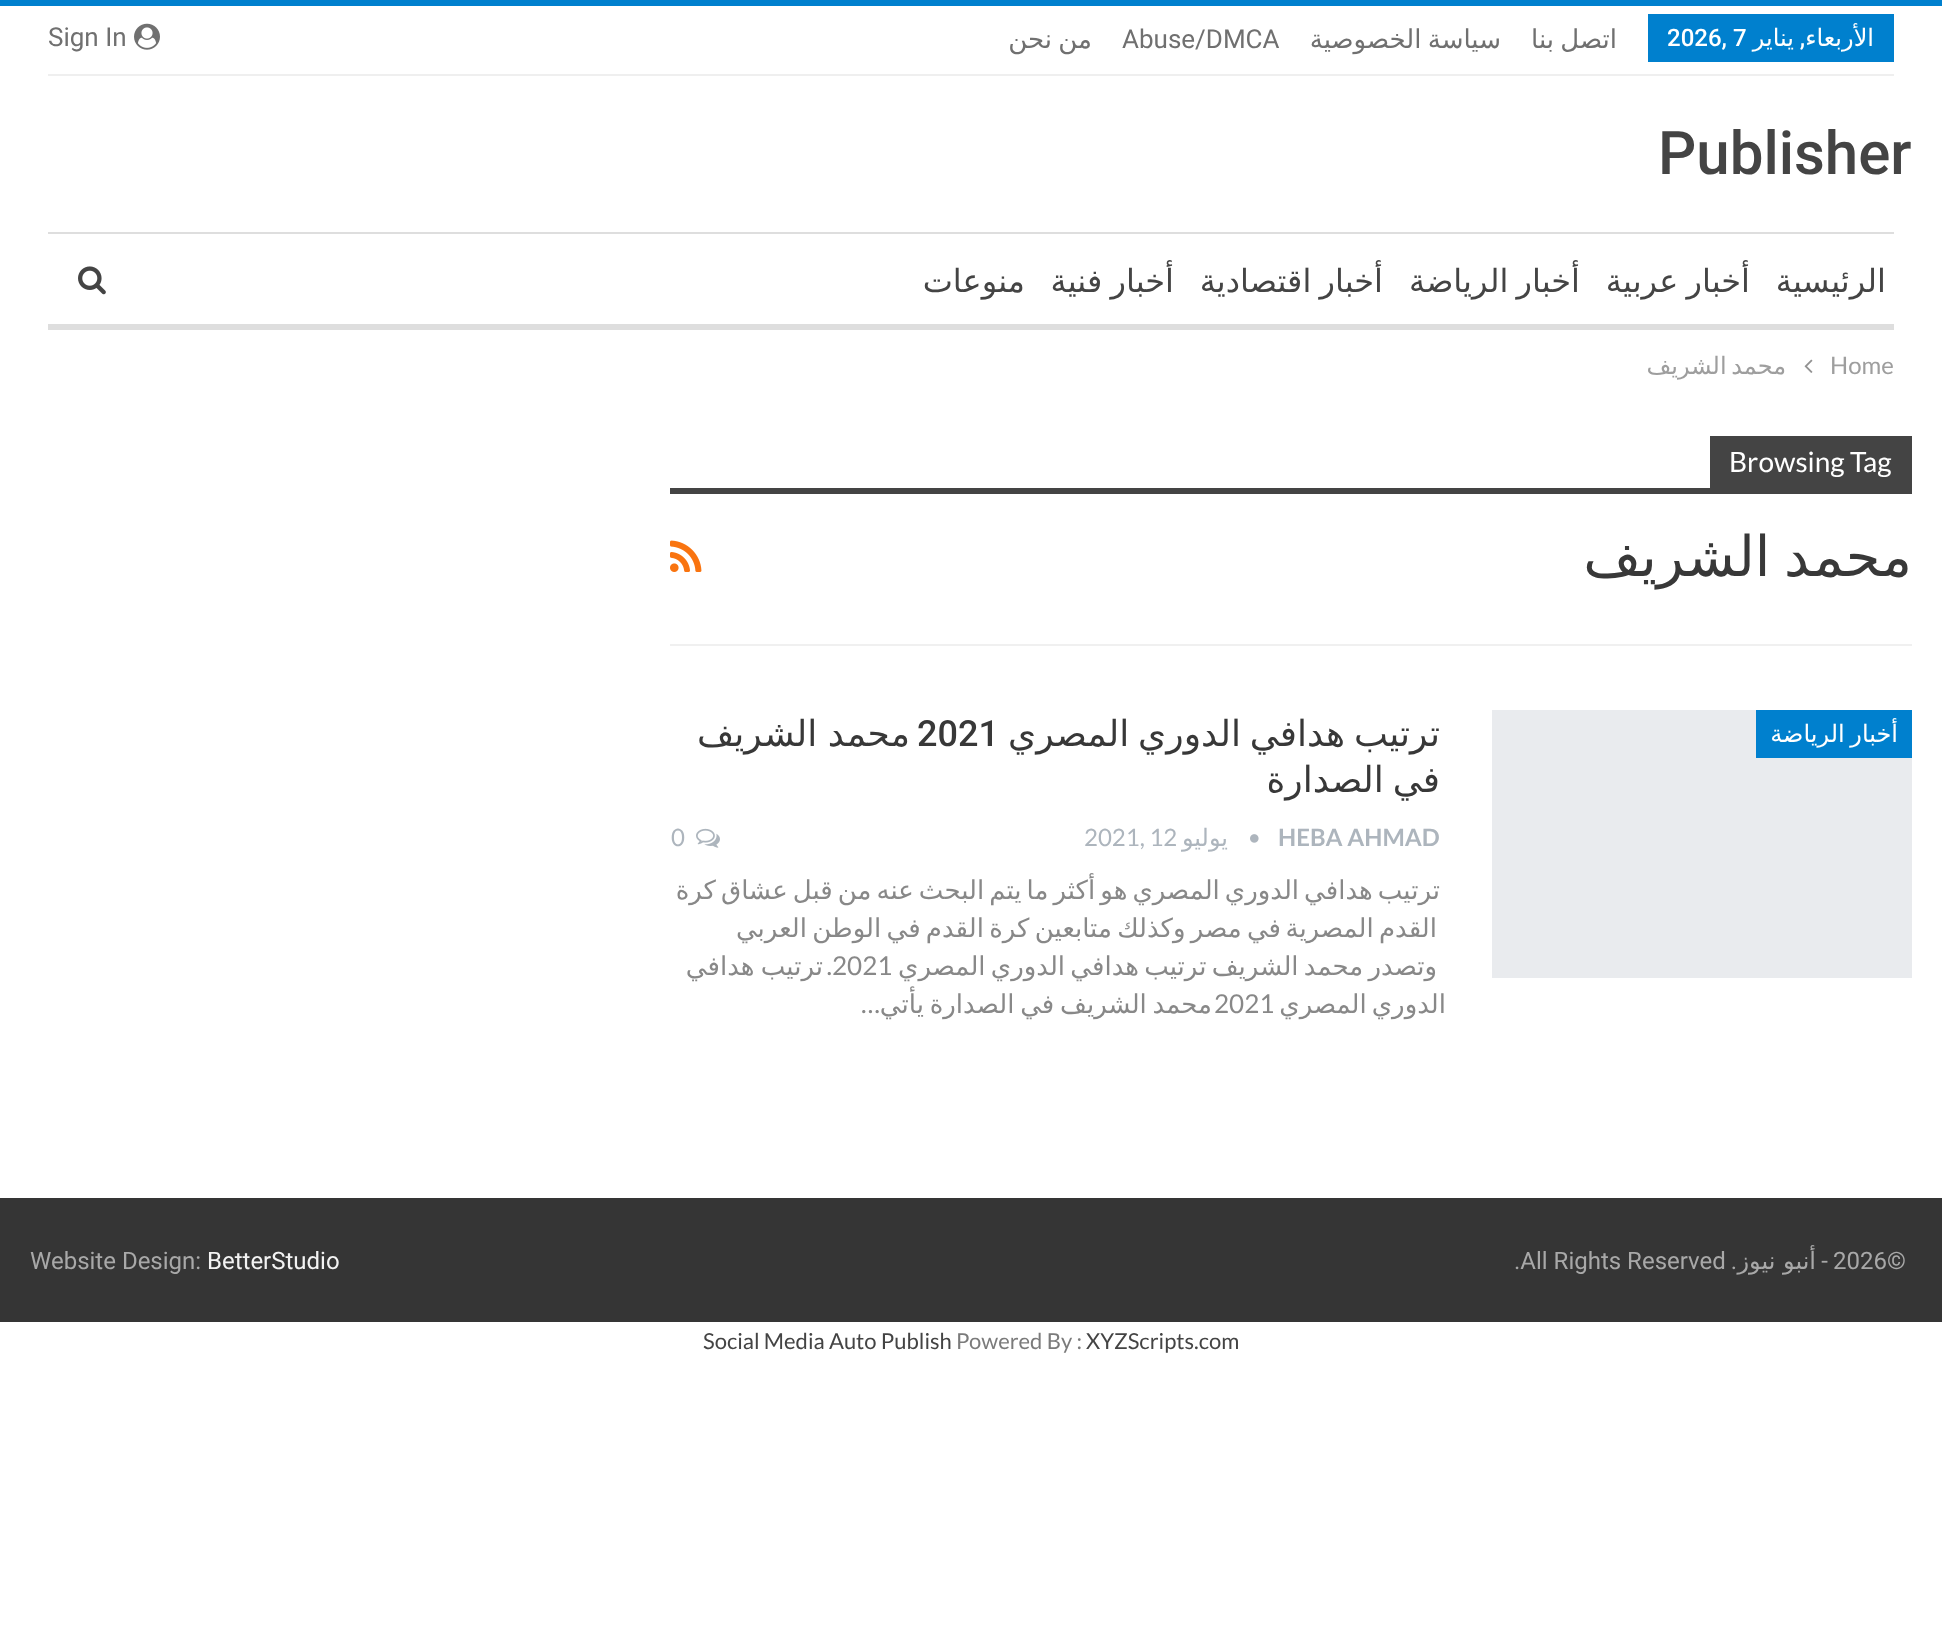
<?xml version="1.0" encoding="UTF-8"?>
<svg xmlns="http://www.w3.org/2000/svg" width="1942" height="1629">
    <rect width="100%" height="100%" fill="#FFFFFF"/>
    <rect x="0" y="0" width="1942" height="6" fill="#0080CE"/>
    <rect x="48" y="74" width="1846" height="2" fill="#EFEFEF"/>
    <rect x="1648" y="14" width="246" height="48" fill="#0080CE"/>
    <text x="1874" y="46" font-family="DejaVu Sans" font-size="24" direction="rtl" fill="#FFFFFF">الأربعاء</text>
    <text x="1805" y="46" font-family="Roboto" font-size="24" font-weight="500" direction="rtl" fill="#FFFFFF">,</text>
    <text x="1794" y="46" font-family="DejaVu Sans" font-size="24" direction="rtl" fill="#FFFFFF">يناير</text>
    <text x="1667" y="46" font-family="Roboto" font-size="24" font-weight="500" fill="#FFFFFF">2026, 7</text>
    <text x="1617" y="48" word-spacing="-2" font-family="DejaVu Sans" font-size="26" direction="rtl" fill="#707070">اتصل بنا</text>
    <text x="1501" y="48" word-spacing="-2" font-family="DejaVu Sans" font-size="26" direction="rtl" fill="#707070">سياسة الخصوصية</text>
    <text x="1122" y="48" font-family="Roboto" font-size="26" fill="#707070">Abuse/DMCA</text>
    <text x="1092" y="48" word-spacing="-2" font-family="DejaVu Sans" font-size="26" direction="rtl" fill="#707070">من نحن</text>
    <image x="134" y="23" width="26" height="27" href="img_01.png"/>
    <text x="48" y="46" font-family="Roboto" font-size="26" fill="#707070">Sign In</text>
    <text x="1658" y="174" font-family="Roboto" font-size="60" font-weight="500" fill="#444444">Publisher</text>
    <rect x="48" y="232" width="1846" height="2" fill="#DEDEDE"/>
    <rect x="48" y="324" width="1846" height="6" fill="#DEDEDE"/>
    <text x="1886" y="292" font-family="DejaVu Sans" font-size="32" direction="rtl" fill="#444444">الرئيسية</text>
    <text x="1750" y="292" word-spacing="-2" font-family="DejaVu Sans" font-size="32" direction="rtl" fill="#444444">أخبار عربية</text>
    <text x="1580" y="292" word-spacing="-2" font-family="DejaVu Sans" font-size="32" direction="rtl" fill="#444444">أخبار الرياضة</text>
    <text x="1383" y="292" word-spacing="-2" font-family="DejaVu Sans" font-size="32" direction="rtl" fill="#444444">أخبار اقتصادية</text>
    <text x="1174" y="292" word-spacing="-2" font-family="DejaVu Sans" font-size="32" direction="rtl" fill="#444444">أخبار فنية</text>
    <text x="1025" y="292" font-family="DejaVu Sans" font-size="32" direction="rtl" fill="#444444">منوعات</text>
    <image x="78" y="266" width="28" height="29" href="img_02.png"/>
    <text x="1830" y="374" font-family="Lato" font-size="24" fill="#9E9E9E">Home</text>
    <image x="1804" y="359" width="9" height="14" href="img_03.png"/>
    <text x="1786" y="374" word-spacing="-3" font-family="DejaVu Sans" font-size="24" direction="rtl" fill="#9E9E9E">محمد الشريف</text>
    <rect x="670" y="644" width="1242" height="2" fill="#F0F0F0"/>
    <rect x="1710" y="436" width="202" height="52" fill="#444444"/>
    <text x="1729" y="472" font-family="Lato" font-size="28" fill="#FFFFFF">Browsing Tag</text>
    <rect x="670" y="488" width="1242" height="6" fill="#444444"/>
    <text x="1912" y="576" word-spacing="-4" font-family="DejaVu Sans" font-size="56" direction="rtl" fill="#383838">محمد الشريف</text>
    <image x="670" y="540" width="32" height="32" href="img_04.png"/>
    <rect x="1492" y="710" width="420" height="268" fill="#E9EBEE"/>
    <rect x="1756" y="710" width="156" height="48" fill="#0080CE"/>
    <text x="1898" y="742" word-spacing="-2" font-family="DejaVu Sans" font-size="24" direction="rtl" fill="#FFFFFF">أخبار الرياضة</text>
    <text x="1440" y="746" word-spacing="-2.5" font-family="DejaVu Sans" font-size="36" direction="rtl" fill="#383838">ترتيب هدافي الدوري المصري</text>
    <text x="917" y="746" font-family="Roboto" font-size="36" font-weight="500" fill="#383838">2021</text>
    <text x="910" y="746" word-spacing="-1" font-family="DejaVu Sans" font-size="36" direction="rtl" fill="#383838">محمد الشريف</text>
    <text x="1440" y="792" word-spacing="-2.5" font-family="DejaVu Sans" font-size="36" direction="rtl" fill="#383838">في الصدارة</text>
    <text x="1278" y="846" font-family="Lato" font-size="24" font-weight="700" fill="#ADB5BD">HEBA AHMAD</text>
    <image x="1250" y="834" width="9" height="9" href="img_05.png"/>
    <text x="1228" y="846" font-family="DejaVu Sans" font-size="24" direction="rtl" fill="#ADB5BD">يوليو</text>
    <text x="1084" y="846" font-family="Lato" font-size="24" fill="#ADB5BD">2021, 12</text>
    <image x="696" y="828" width="24" height="20" href="img_06.png"/>
    <text x="671" y="846" font-family="Lato" font-size="24" fill="#ADB5BD">0</text>
    <text x="1440" y="899" word-spacing="-3.25" font-family="DejaVu Sans" font-size="26" direction="rtl" fill="#888888">ترتيب هدافي الدوري المصري هو أكثر ما يتم البحث عنه من قبل عشاق كرة</text>
    <text x="1281" y="937" word-spacing="-3" font-family="DejaVu Sans" font-size="26" direction="rtl" fill="#888888">في مصر وكذلك متابعين كرة القدم في الوطن العربي</text>
    <text font-family="DejaVu Sans" font-size="26" direction="rtl" fill="#888888">
        <tspan x="1437" y="937" word-spacing="-3">القدم المصرية</tspan>
        <tspan x="1437" y="975" word-spacing="-3">وتصدر محمد الشريف ترتيب</tspan>
    </text>
    <text x="1139" y="975" word-spacing="-3" font-family="DejaVu Sans" font-size="26" direction="rtl" fill="#888888">هدافي الدوري المصري</text>
    <text x="832" y="975" font-family="Lato" font-size="26" fill="#888888">2021</text>
    <text x="832" y="975" font-family="Lato" font-size="26" direction="rtl" fill="#888888">.</text>
    <text x="823" y="975" word-spacing="-2" font-family="DejaVu Sans" font-size="26" direction="rtl" fill="#888888">ترتيب هدافي</text>
    <text x="1446" y="1013" word-spacing="-3.25" font-family="DejaVu Sans" font-size="26" direction="rtl" fill="#888888">الدوري المصري</text>
    <text x="1212" y="1013" word-spacing="-2.5" font-family="DejaVu Sans" font-size="26" direction="rtl" fill="#888888">محمد الشريف في الصدارة يأتي</text>
    <text x="1214" y="1013" font-family="Lato" font-size="26" fill="#888888">2021</text>
    <text x="880" y="1013" font-family="Lato" font-size="26" direction="rtl" fill="#888888">…</text>
    <rect x="0" y="1198" width="1942" height="124" fill="#353535"/>
    <text x="1833" y="1269" font-family="Roboto" font-size="24" fill="#A8A8A8">2026©</text>
    <text x="1828" y="1269" font-family="Roboto" font-size="24" direction="rtl" fill="#A8A8A8">-</text>
    <text x="1816" y="1269" font-family="DejaVu Sans" font-size="24" direction="rtl" fill="#A8A8A8">أنبو نيوز</text>
    <text x="1514" y="1269" font-family="Roboto" font-size="24" fill="#A8A8A8">.All Rights Reserved</text>
    <text x="1737" y="1269" font-family="Roboto" font-size="24" direction="rtl" fill="#A8A8A8">.</text>
    <text x="207" y="1269" font-family="Roboto" font-size="24" fill="#F3F3F3">BetterStudio</text>
    <text x="30" y="1269" font-family="Roboto" font-size="24" fill="#A8A8A8">Website Design:</text>
    <text x="1086" y="1349" font-family="Lato" font-size="22" fill="#444444">XYZScripts.com</text>
    <text x="956" y="1349" font-family="Lato" font-size="22" fill="#7B7B7B">Powered By :</text>
    <text x="703" y="1349" font-family="Lato" font-size="22" fill="#444444">Social Media Auto Publish</text>
</svg>
